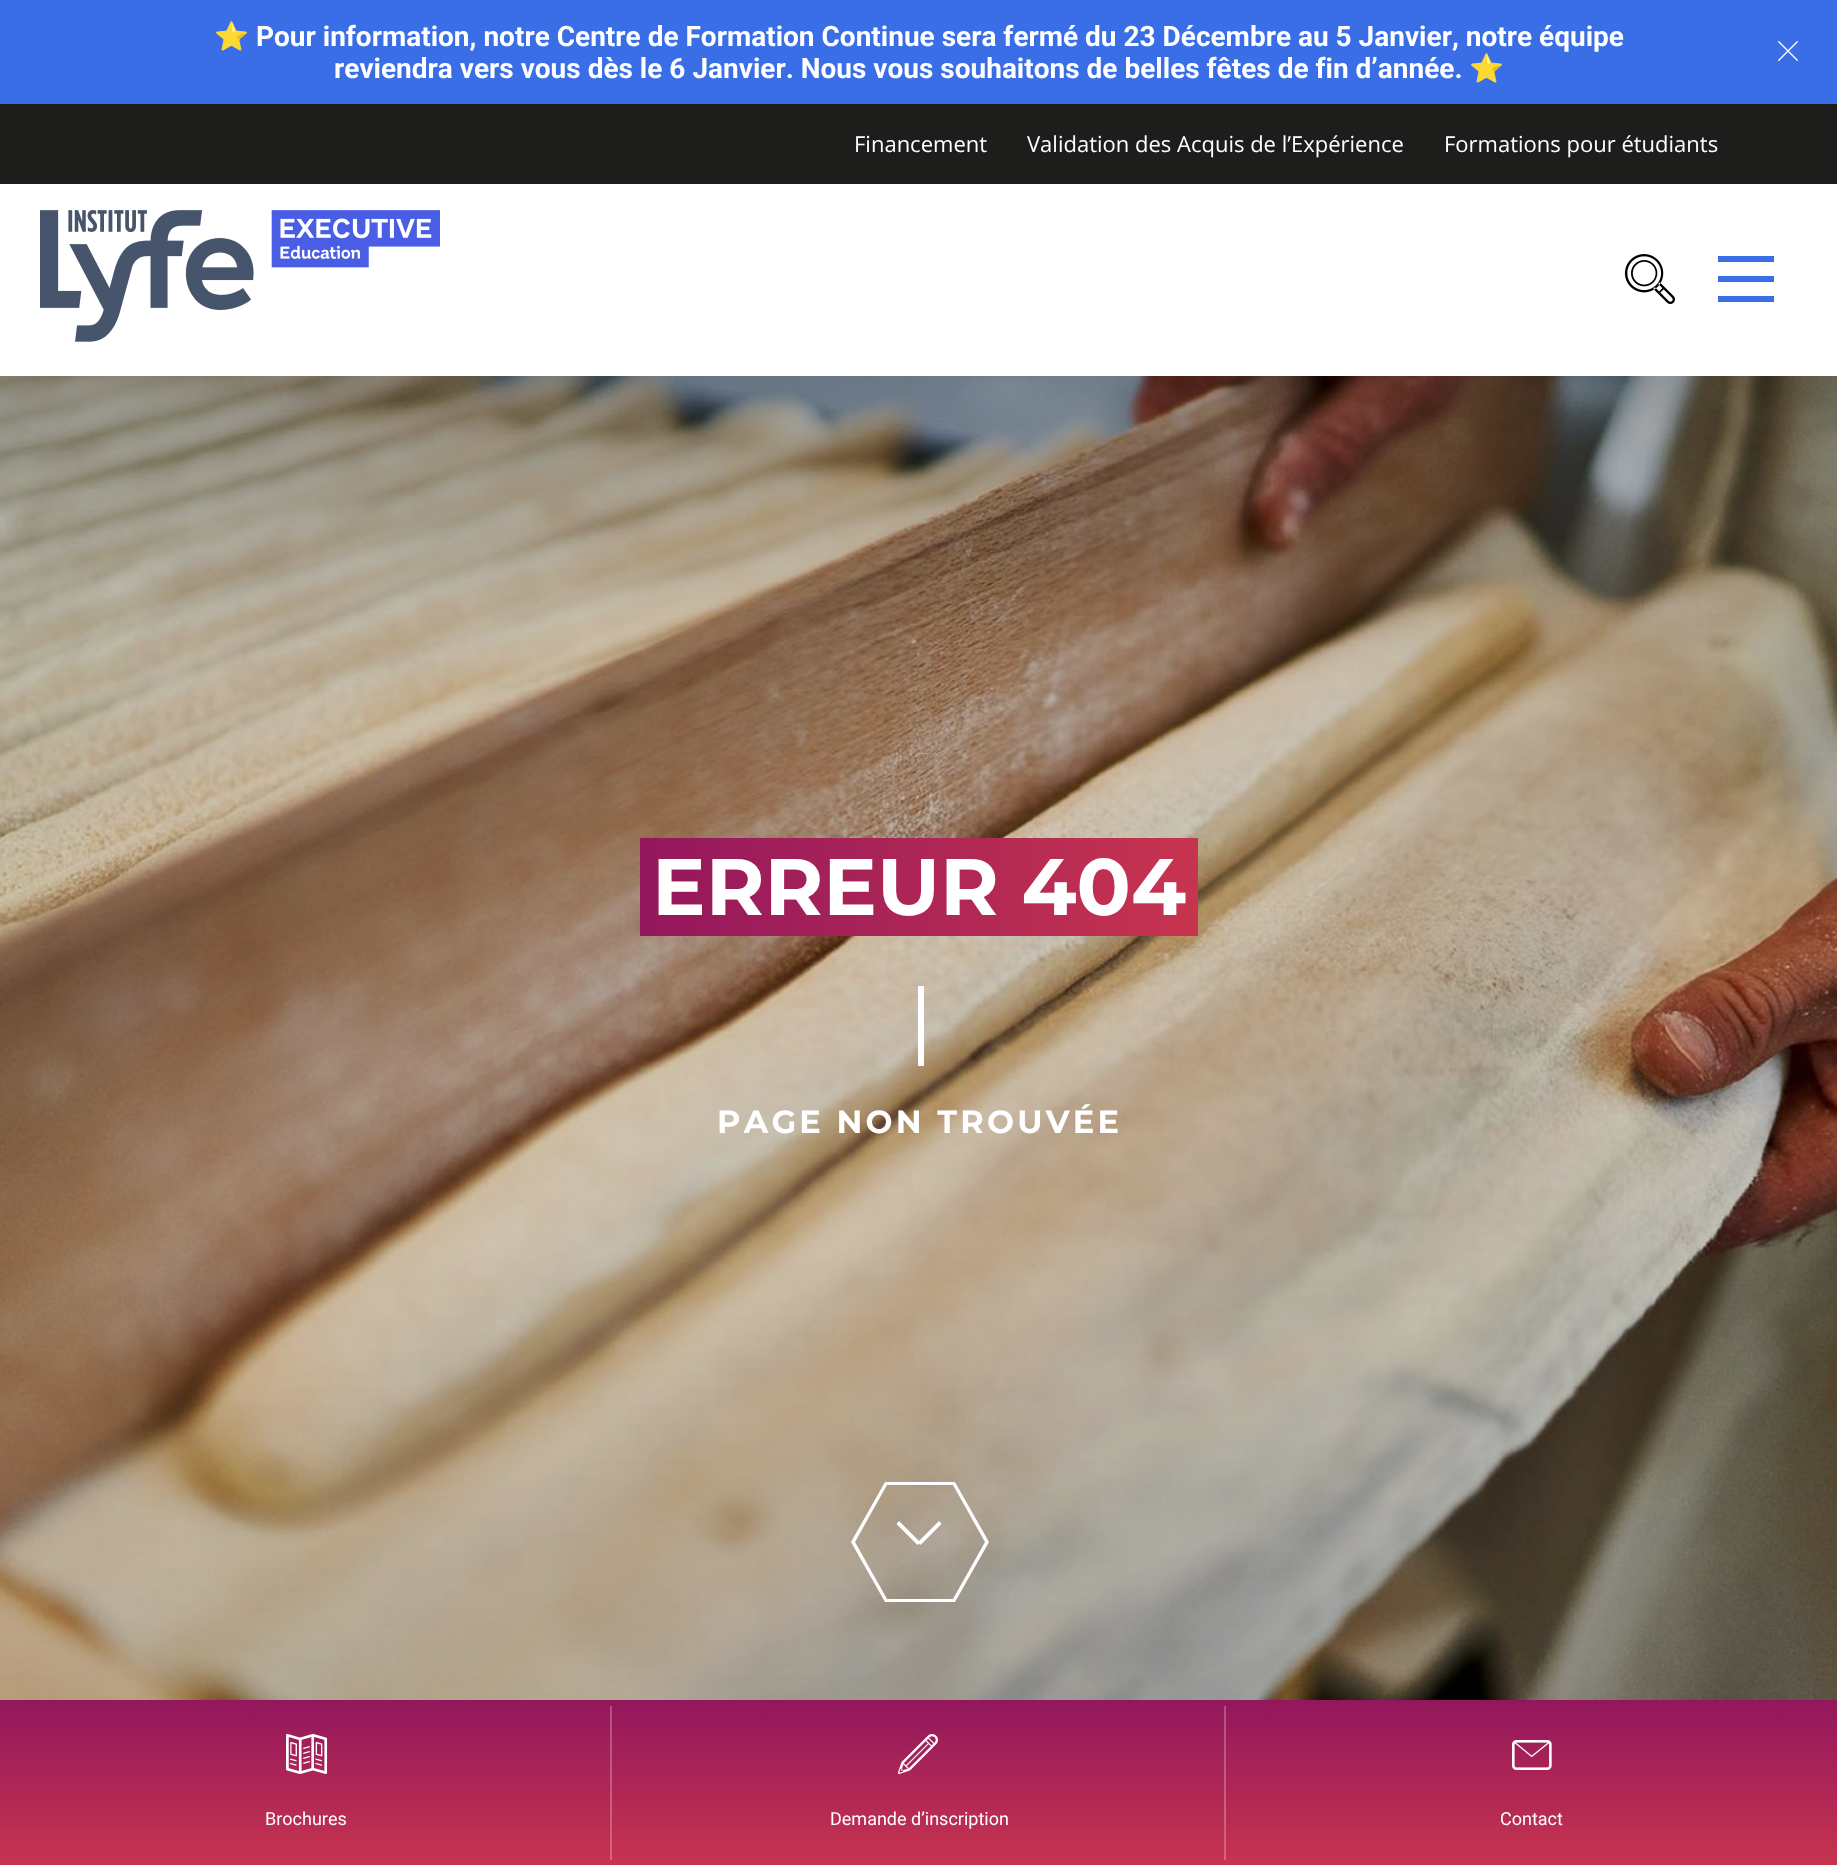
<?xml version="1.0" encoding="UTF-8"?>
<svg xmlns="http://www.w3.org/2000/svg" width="1837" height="1865">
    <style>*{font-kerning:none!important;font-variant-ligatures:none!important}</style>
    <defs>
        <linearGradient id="g1" gradientUnits="userSpaceOnUse" x1="640" y1="886" x2="1198" y2="886"><stop offset="0" stop-color="#93175D"/><stop offset="1" stop-color="#C7344F"/></linearGradient>
        <linearGradient id="g2" gradientUnits="userSpaceOnUse" x1="919" y1="1700" x2="919" y2="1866"><stop offset="0" stop-color="#93175D"/><stop offset="1" stop-color="#C7344F"/></linearGradient>
    </defs>
    <rect width="100%" height="100%" fill="#FFFFFF"/>
    <rect x="0" y="0" width="1837" height="104" fill="#396EE6"/>
    <text x="214" y="46" font-family="Noto Color Emoji" font-size="28" font-weight="700" fill="#FFFFFF">⭐</text>
    <text x="256" y="46" font-family="Roboto" font-size="28" font-weight="700" fill="#FFFFFF">Pour information, notre Centre de Formation Continue sera fermé du 23 Décembre au 5 Janvier, notre équipe</text>
    <text x="334" y="78" font-family="Roboto" font-size="28" font-weight="700" fill="#FFFFFF">reviendra vers vous dès le 6 Janvier. Nous vous souhaitons de belles fêtes de fin d’année.</text>
    <text x="1469" y="78" font-family="Noto Color Emoji" font-size="28" font-weight="700" fill="#FFFFFF">⭐</text>
    <image x="1778" y="41" width="20" height="20" href="img_01.png"/>
    <rect x="0" y="104" width="1837" height="80" fill="#1D1D1B"/>
    <text x="854" y="152" font-family="Open Sans" font-size="22" fill="#FFFFFF">Financement</text>
    <text x="1027" y="152" font-family="Open Sans" font-size="22" fill="#FFFFFF">Validation des Acquis de l’Expérience</text>
    <text x="1444" y="152" font-family="Open Sans" font-size="22" fill="#FFFFFF">Formations pour étudiants</text>
    <image x="40" y="210" width="400" height="132" href="img_02.png"/>
    <image x="1624" y="254" width="51" height="50" href="img_03.png"/>
    <rect x="1718" y="276" width="56" height="6" fill="#396EE6"/>
    <rect x="1718" y="256" width="56" height="6" fill="#396EE6"/>
    <rect x="1718" y="296" width="56" height="6" fill="#396EE6"/>
    <image x="0" y="376" width="1837" height="1324" href="img_04.png"/>
    <path d="M 953 1485 L 985 1542 L 953 1599 H 887 L 855 1542 L 887 1485 Z M 955 1482 H 885 L 851 1542 L 885 1602 H 955 L 989 1542 Z" fill="#FFFFFF"/>
    <path d="M 917.5 1542.5 L 939 1521 L 941.5 1524 L 920.5 1545 Z" fill="#FFFFFF"/>
    <path d="M 899 1521 L 920.5 1542.5 L 917.5 1545 L 896.5 1524 Z" fill="#FFFFFF"/>
    <rect x="640" y="838" width="558" height="98" fill="url(#g1)"/>
    <text x="652" y="915" font-family="Montserrat" font-size="80" font-weight="700" fill="#FFFFFF">ERREUR 404</text>
    <rect x="918" y="986" width="6" height="80" fill="#FFFFFF"/>
    <text x="717" y="1133" font-family="Montserrat" font-size="32" font-weight="700" letter-spacing="3.25" fill="#FFFFFF">PAGE NON TROUVÉE</text>
    <rect x="0" y="1700" width="1837" height="165" fill="url(#g2)"/>
    <image x="286" y="1734" width="42" height="40" href="img_05.png"/>
    <text x="265" y="1825" font-family="Roboto" font-size="18" fill="#FFFFFF">Brochures</text>
    <rect x="610" y="1706" width="2" height="154" fill="#FFFFFF" fill-opacity="0.25"/>
    <image x="898" y="1734" width="40" height="40" href="img_06.png"/>
    <text x="830" y="1825" font-family="Roboto" font-size="18" fill="#FFFFFF">Demande d’inscription</text>
    <rect x="1224" y="1706" width="2" height="154" fill="#FFFFFF" fill-opacity="0.25"/>
    <image x="1512" y="1740" width="40" height="30" href="img_07.png"/>
    <text x="1500" y="1825" font-family="Roboto" font-size="18" fill="#FFFFFF">Contact</text>
</svg>
